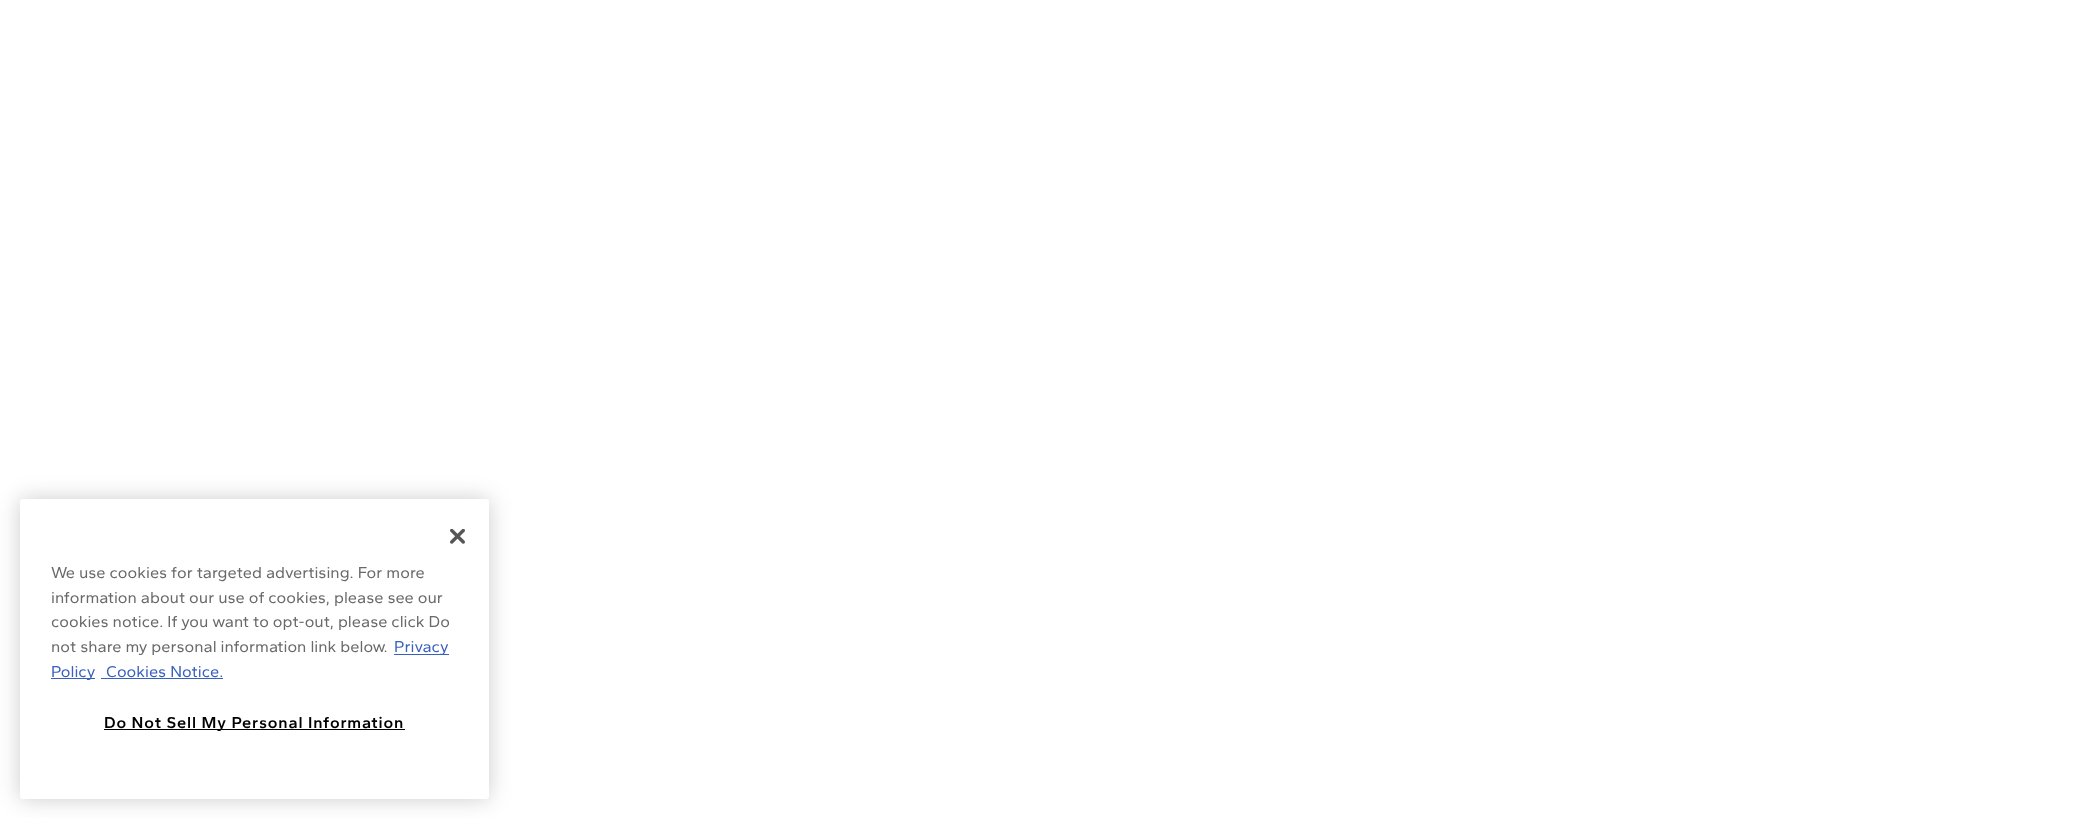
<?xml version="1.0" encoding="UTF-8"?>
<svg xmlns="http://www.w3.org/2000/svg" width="2077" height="818">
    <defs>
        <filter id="blur1" x="-50%" y="-200%" width="200%" height="500%"><feGaussianBlur stdDeviation="11"/></filter>
    </defs>
    <rect width="100%" height="100%" fill="#FFFFFF"/>
    <rect x="20" y="499" width="469" height="300" rx="3" fill="#000000" fill-opacity="0.2" filter="url(#blur1)"/>
    <rect x="20" y="499" width="469" height="300" rx="3" fill="#FFFFFF"/>
    <image x="450" y="529" width="15" height="15" href="img_01.png"/>
    <text font-family="Gantari" font-size="16.4" fill="#696969">
        <tspan x="51" y="578">We use cookies for targeted advertising. For more</tspan>
        <tspan x="51" y="603">information about our use of cookies, please see our</tspan>
        <tspan x="51" y="627">cookies notice. If you want to opt-out, please click Do</tspan>
        <tspan x="51" y="652">not share my personal information link below.</tspan>
    </text>
    <rect x="394" y="654" width="55" height="1" fill="#3860BE"/>
    <text x="394" y="652" font-family="Gantari" font-size="16.4" fill="#3860BE">Privacy</text>
    <rect x="51" y="678" width="44" height="1" fill="#3860BE"/>
    <text x="51" y="677" font-family="Gantari" font-size="16.4" fill="#3860BE">Policy</text>
    <text x="106" y="677" font-family="Gantari" font-size="16.4" fill="#3860BE">Cookies Notice.</text>
    <rect x="101" y="678" width="122" height="1" fill="#3860BE"/>
    <rect x="104" y="729" width="301" height="1" fill="#000000"/>
    <text x="104" y="728" font-family="Gantari" font-size="16.4" font-weight="600" letter-spacing="0.8" fill="#000000">Do Not Sell My Personal Information</text>
</svg>
